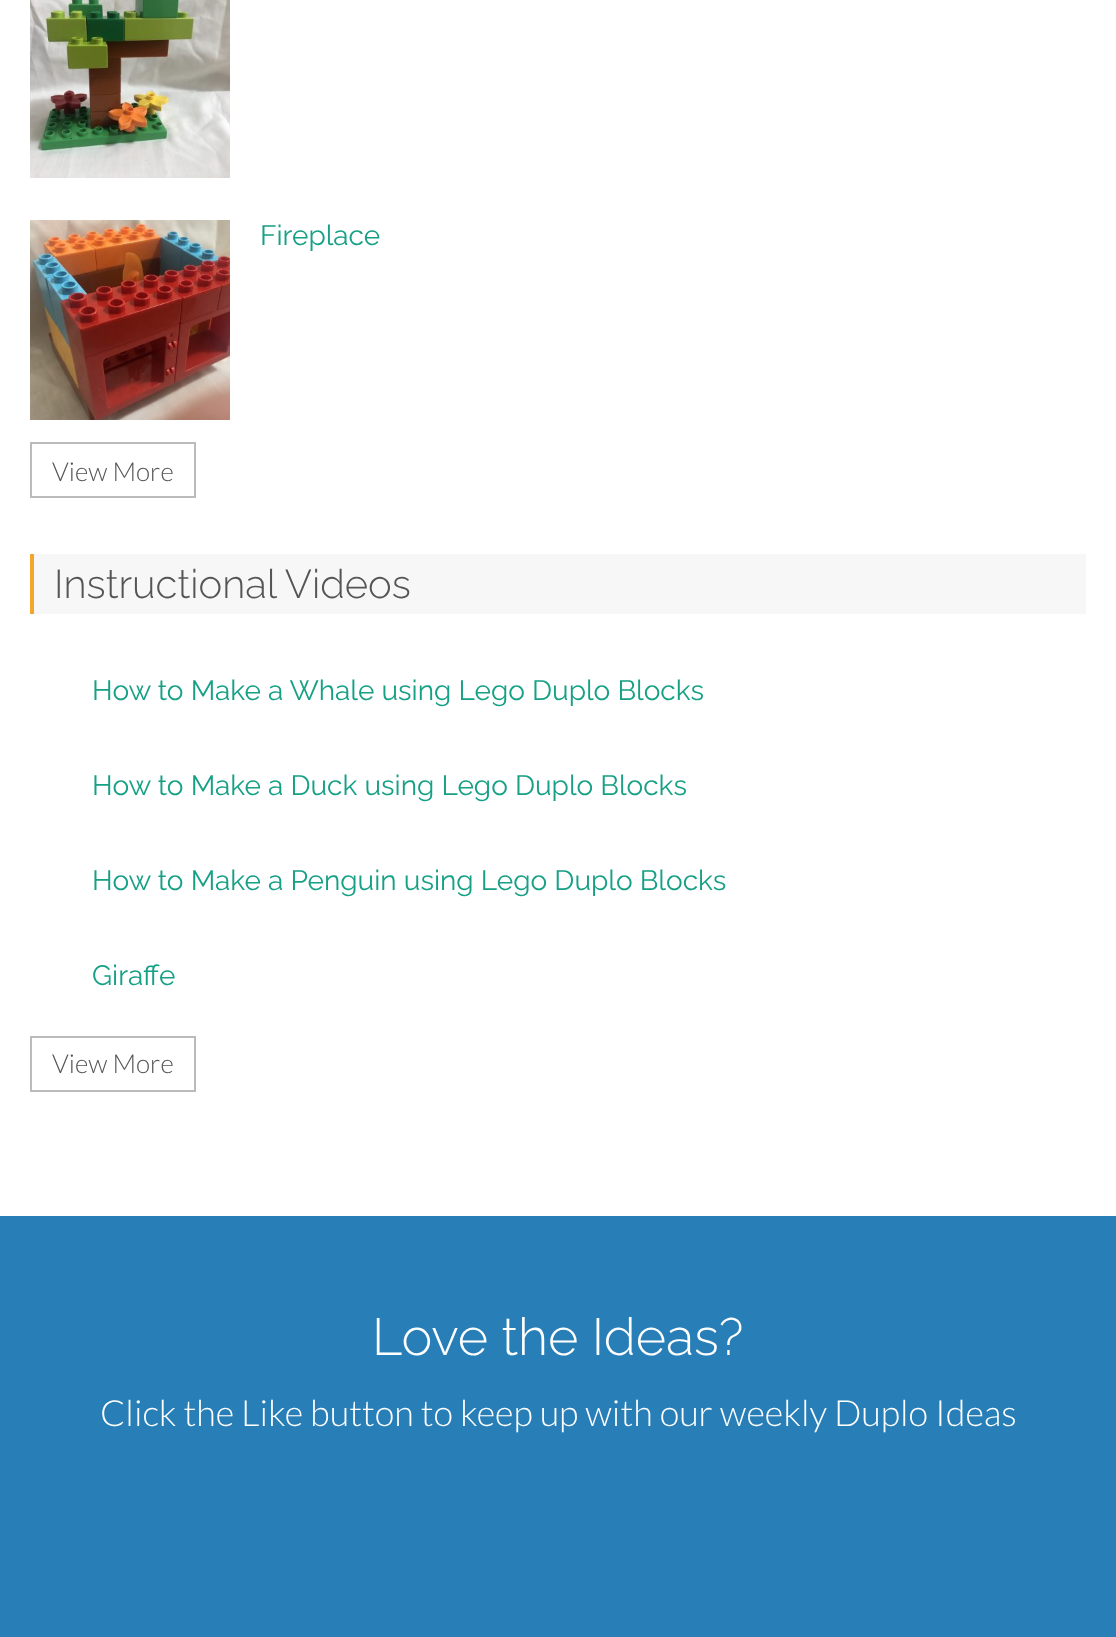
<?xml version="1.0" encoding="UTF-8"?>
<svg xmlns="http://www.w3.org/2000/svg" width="1116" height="1637">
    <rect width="100%" height="100%" fill="#FFFFFF"/>
    <image x="30" y="0" width="200" height="178" href="img_01.png"/>
    <image x="30" y="220" width="200" height="200" href="img_02.png"/>
    <text x="260" y="245" font-family="Raleway" font-size="28" fill="#16A085">Fireplace</text>
    <rect x="31" y="443" width="164" height="54" fill="none" stroke="#BBBBBB" stroke-width="2"/>
    <text x="52" y="481" font-family="Lato" font-size="26" font-weight="300" fill="#555555">View More</text>
    <rect x="34" y="554" width="1052" height="60" fill="#F7F7F7"/>
    <rect x="30" y="554" width="4" height="60" fill="#F5A52C"/>
    <text x="54" y="598" font-family="Raleway" font-size="40" font-weight="300" fill="#555555">Instructional Videos</text>
    <text x="92" y="700" font-family="Raleway" font-size="28" fill="#16A085">How to Make a Whale using Lego Duplo Blocks</text>
    <text x="92" y="795" font-family="Raleway" font-size="28" fill="#16A085">How to Make a Duck using Lego Duplo Blocks</text>
    <text x="92" y="890" font-family="Raleway" font-size="28" fill="#16A085">How to Make a Penguin using Lego Duplo Blocks</text>
    <text x="92" y="985" font-family="Raleway" font-size="28" fill="#16A085">Giraffe</text>
    <rect x="31" y="1037" width="164" height="54" fill="none" stroke="#BBBBBB" stroke-width="2"/>
    <text x="52" y="1073" font-family="Lato" font-size="26" font-weight="300" fill="#555555">View More</text>
    <rect x="0" y="1216" width="1116" height="421" fill="#287EB7"/>
    <text x="372" y="1355" font-family="Raleway" font-size="52" font-weight="300" fill="#FFFFFF">Love the Ideas?</text>
    <text x="100" y="1426" font-family="Lato" font-size="36" font-weight="300" fill="#FFFFFF">Click the Like button to keep up with our weekly Duplo Ideas</text>
</svg>
